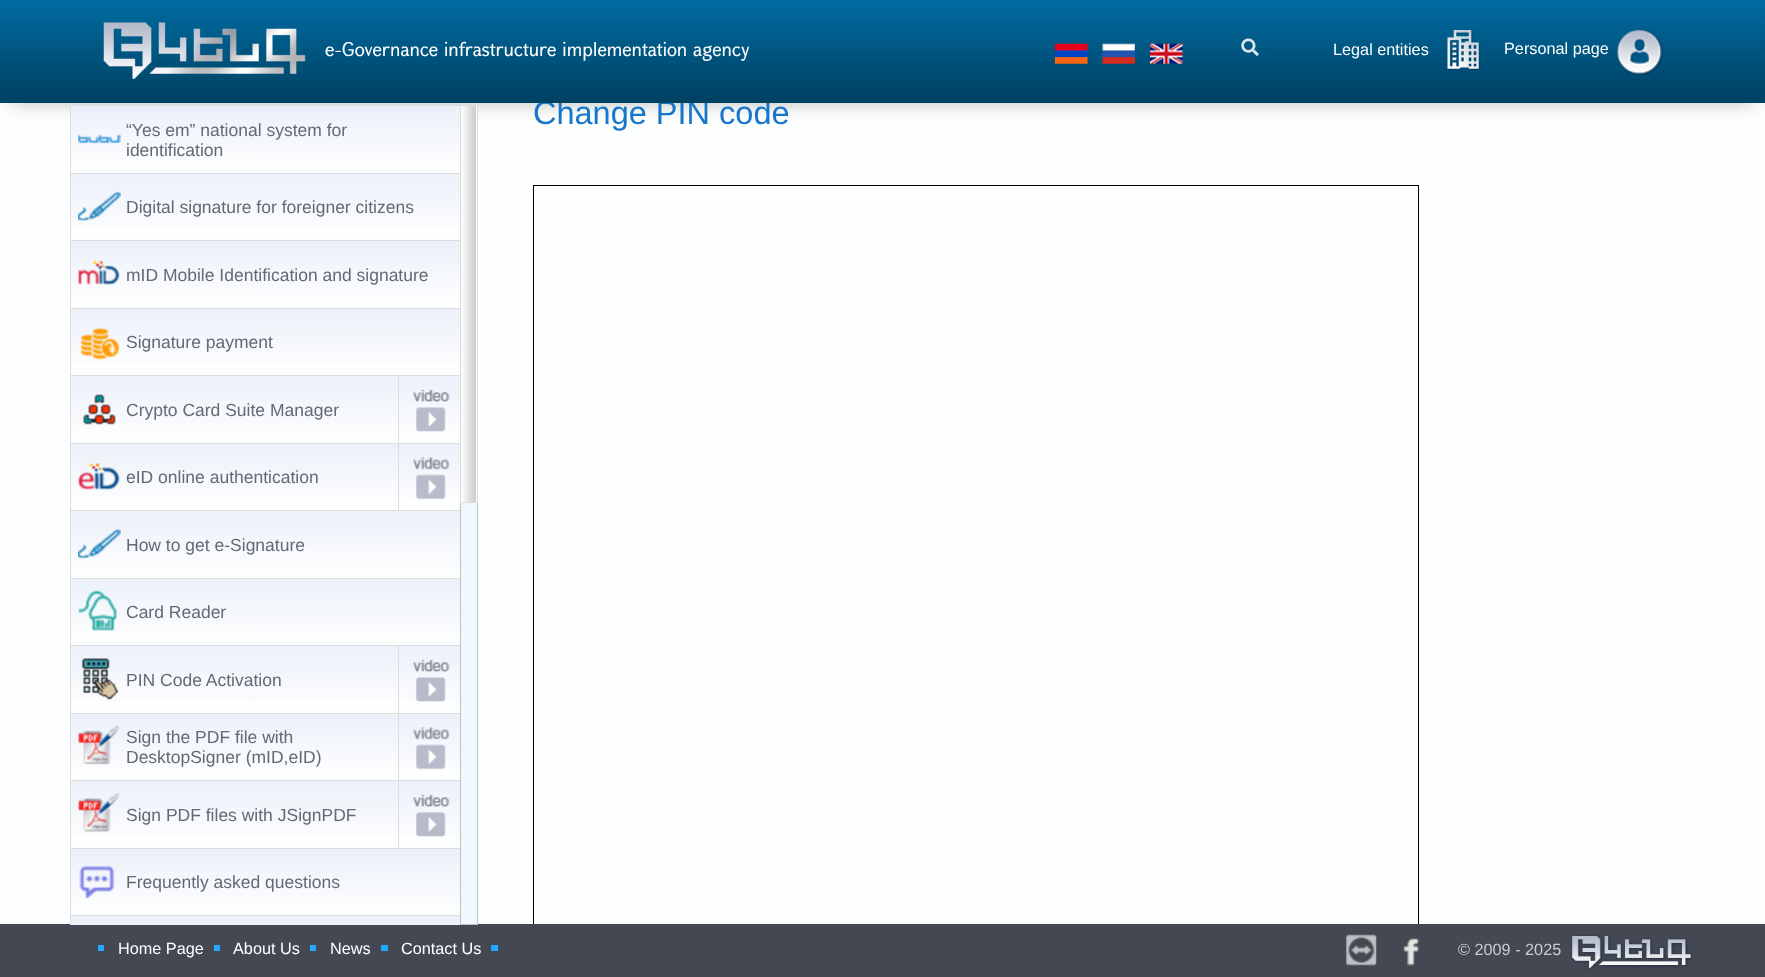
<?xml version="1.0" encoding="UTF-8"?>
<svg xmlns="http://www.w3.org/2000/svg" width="1765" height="977">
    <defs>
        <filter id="blur1" x="-50%" y="-200%" width="200%" height="500%"><feGaussianBlur stdDeviation="12.5"/></filter>
        <linearGradient id="g1" gradientUnits="userSpaceOnUse" x1="883" y1="103" x2="883" y2="0"><stop offset="0" stop-color="#004161"/><stop offset="1" stop-color="#006BA1"/></linearGradient>
        <linearGradient id="g2" gradientUnits="userSpaceOnUse" x1="266" y1="173" x2="266" y2="105"><stop offset="0" stop-color="#FFFFFF"/><stop offset="1" stop-color="#EBF0F9"/></linearGradient>
        <linearGradient id="g3" gradientUnits="userSpaceOnUse" x1="266" y1="240" x2="266" y2="173"><stop offset="0" stop-color="#FFFFFF"/><stop offset="1" stop-color="#EBF0F9"/></linearGradient>
        <linearGradient id="g4" gradientUnits="userSpaceOnUse" x1="266" y1="308" x2="266" y2="240"><stop offset="0" stop-color="#FFFFFF"/><stop offset="1" stop-color="#EBF0F9"/></linearGradient>
        <linearGradient id="g5" gradientUnits="userSpaceOnUse" x1="266" y1="375" x2="266" y2="308"><stop offset="0" stop-color="#FFFFFF"/><stop offset="1" stop-color="#EBF0F9"/></linearGradient>
        <linearGradient id="g6" gradientUnits="userSpaceOnUse" x1="266" y1="443" x2="266" y2="375"><stop offset="0" stop-color="#FFFFFF"/><stop offset="1" stop-color="#EBF0F9"/></linearGradient>
        <linearGradient id="g7" gradientUnits="userSpaceOnUse" x1="266" y1="510" x2="266" y2="443"><stop offset="0" stop-color="#FFFFFF"/><stop offset="1" stop-color="#EBF0F9"/></linearGradient>
        <linearGradient id="g8" gradientUnits="userSpaceOnUse" x1="266" y1="578" x2="266" y2="510"><stop offset="0" stop-color="#FFFFFF"/><stop offset="1" stop-color="#EBF0F9"/></linearGradient>
        <linearGradient id="g9" gradientUnits="userSpaceOnUse" x1="266" y1="645" x2="266" y2="578"><stop offset="0" stop-color="#FFFFFF"/><stop offset="1" stop-color="#EBF0F9"/></linearGradient>
        <linearGradient id="g10" gradientUnits="userSpaceOnUse" x1="266" y1="713" x2="266" y2="645"><stop offset="0" stop-color="#FFFFFF"/><stop offset="1" stop-color="#EBF0F9"/></linearGradient>
        <linearGradient id="g11" gradientUnits="userSpaceOnUse" x1="266" y1="780" x2="266" y2="713"><stop offset="0" stop-color="#FFFFFF"/><stop offset="1" stop-color="#EBF0F9"/></linearGradient>
        <linearGradient id="g12" gradientUnits="userSpaceOnUse" x1="266" y1="848" x2="266" y2="780"><stop offset="0" stop-color="#FFFFFF"/><stop offset="1" stop-color="#EBF0F9"/></linearGradient>
        <linearGradient id="g13" gradientUnits="userSpaceOnUse" x1="266" y1="915" x2="266" y2="848"><stop offset="0" stop-color="#FFFFFF"/><stop offset="1" stop-color="#EBF0F9"/></linearGradient>
        <linearGradient id="g14" gradientUnits="userSpaceOnUse" x1="266" y1="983" x2="266" y2="915"><stop offset="0" stop-color="#FFFFFF"/><stop offset="1" stop-color="#EBF0F9"/></linearGradient>
        <linearGradient id="g15" gradientUnits="userSpaceOnUse" x1="461" y1="304" x2="476" y2="304"><stop offset="0" stop-color="#FEFEFE"/><stop offset="1" stop-color="#CACACA"/></linearGradient>
        <linearGradient id="g16" gradientUnits="userSpaceOnUse" x1="476" y1="304" x2="491" y2="304"><stop offset="0" stop-color="#FEFEFE"/><stop offset="1" stop-color="#CACACA"/></linearGradient>
    </defs>
    <rect width="100%" height="100%" fill="#FDFFFF"/>
    <rect x="13" y="19" width="1740" height="77" fill="#000000" fill-opacity="0.5" filter="url(#blur1)"/>
    <text x="533" y="124" font-family="Liberation Sans" font-size="32.5" fill="#1576CB">Change PIN code</text>
    <rect x="0" y="0" width="1765" height="103" fill="url(#g1)"/>
    <image x="103" y="22" width="203" height="57" href="img_01.png"/>
    <text x="325" y="56" font-family="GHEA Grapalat" font-size="18.75" fill="#FFFFFF">e-Governance infrastructure implementation agency</text>
    <image x="1055" y="43" width="33" height="21" href="img_02.png"/>
    <image x="1102" y="43" width="33" height="21" href="img_03.png"/>
    <image x="1150" y="43" width="33" height="21" href="img_04.png"/>
    <image x="1241" y="38" width="18" height="18" href="img_05.png"/>
    <image x="1447" y="30" width="34" height="41" href="img_06.png"/>
    <text x="1333" y="55" font-family="Liberation Sans" font-size="16.25" fill="#FFFFFF">Legal entities</text>
    <image x="1616" y="28" width="48" height="47" href="img_07.png"/>
    <text x="1504" y="54" font-family="Liberation Sans" font-size="16.25" fill="#FFFFFF">Personal page</text>
    <rect x="533.5" y="185.5" width="885" height="762" fill="none" stroke="#000000"/>
    <rect x="71" y="106" width="389" height="56" fill="url(#g2)"/>
    <rect x="70" y="105" width="391" height="1" fill="#DDDDDD"/>
    <rect x="70" y="105" width="1" height="68" fill="#DDDDDD"/>
    <image x="78" y="134" width="43" height="10" href="img_08.png"/>
    <text font-family="Liberation Sans" font-size="17.5" fill="#616B75">
        <tspan x="126" y="136">“Yes em” national system for</tspan>
        <tspan x="126" y="156">identification</tspan>
    </text>
    <rect x="71" y="174" width="389" height="55" fill="url(#g3)"/>
    <rect x="70" y="173" width="391" height="1" fill="#DDDDDD"/>
    <rect x="70" y="173" width="1" height="67" fill="#DDDDDD"/>
    <image x="78" y="191" width="43" height="30" href="img_09.png"/>
    <text x="126" y="213" font-family="Liberation Sans" font-size="17.5" fill="#616B75">Digital signature for foreigner citizens</text>
    <rect x="71" y="241" width="389" height="56" fill="url(#g4)"/>
    <rect x="70" y="240" width="391" height="1" fill="#DDDDDD"/>
    <rect x="70" y="240" width="1" height="68" fill="#DDDDDD"/>
    <image x="78" y="260" width="42" height="25" href="img_10.png"/>
    <text x="126" y="281" font-family="Liberation Sans" font-size="17.5" fill="#616B75">mID Mobile Identification and signature</text>
    <rect x="71" y="309" width="389" height="55" fill="url(#g5)"/>
    <rect x="70" y="308" width="391" height="1" fill="#DDDDDD"/>
    <rect x="70" y="308" width="1" height="67" fill="#DDDDDD"/>
    <image x="80" y="328" width="40" height="32" href="img_11.png"/>
    <text x="126" y="348" font-family="Liberation Sans" font-size="17.5" fill="#616B75">Signature payment</text>
    <rect x="71" y="376" width="389" height="56" fill="url(#g6)"/>
    <rect x="70" y="375" width="391" height="1" fill="#DDDDDD"/>
    <rect x="70" y="375" width="1" height="68" fill="#DDDDDD"/>
    <image x="83" y="394" width="33" height="31" href="img_12.png"/>
    <text x="126" y="416" font-family="Liberation Sans" font-size="17.5" fill="#616B75">Crypto Card Suite Manager</text>
    <image x="413" y="389" width="37" height="43" href="img_13.png"/>
    <rect x="398" y="375" width="1" height="68" fill="#DDDDDD"/>
    <rect x="71" y="444" width="389" height="55" fill="url(#g7)"/>
    <rect x="70" y="443" width="391" height="1" fill="#DDDDDD"/>
    <rect x="70" y="443" width="1" height="67" fill="#DDDDDD"/>
    <image x="78" y="463" width="42" height="27" href="img_14.png"/>
    <text x="126" y="483" font-family="Liberation Sans" font-size="17.5" fill="#616B75">eID online authentication</text>
    <image x="413" y="457" width="37" height="43" href="img_15.png"/>
    <rect x="398" y="443" width="1" height="67" fill="#DDDDDD"/>
    <rect x="71" y="511" width="389" height="56" fill="url(#g8)"/>
    <rect x="70" y="510" width="391" height="1" fill="#DDDDDD"/>
    <rect x="70" y="510" width="1" height="68" fill="#DDDDDD"/>
    <image x="78" y="529" width="43" height="30" href="img_16.png"/>
    <text x="126" y="551" font-family="Liberation Sans" font-size="17.5" fill="#616B75">How to get e-Signature</text>
    <rect x="71" y="579" width="389" height="55" fill="url(#g9)"/>
    <rect x="70" y="578" width="391" height="1" fill="#DDDDDD"/>
    <rect x="70" y="578" width="1" height="67" fill="#DDDDDD"/>
    <image x="78" y="590" width="39" height="41" href="img_17.png"/>
    <text x="126" y="618" font-family="Liberation Sans" font-size="17.5" fill="#616B75">Card Reader</text>
    <rect x="71" y="646" width="389" height="56" fill="url(#g10)"/>
    <rect x="70" y="645" width="391" height="1" fill="#DDDDDD"/>
    <rect x="70" y="645" width="1" height="68" fill="#DDDDDD"/>
    <image x="81" y="658" width="38" height="42" href="img_18.png"/>
    <text x="126" y="686" font-family="Liberation Sans" font-size="17.5" fill="#616B75">PIN Code Activation</text>
    <image x="413" y="659" width="37" height="43" href="img_13.png"/>
    <rect x="398" y="645" width="1" height="68" fill="#DDDDDD"/>
    <rect x="71" y="714" width="389" height="55" fill="url(#g11)"/>
    <rect x="70" y="713" width="391" height="1" fill="#DDDDDD"/>
    <rect x="70" y="713" width="1" height="67" fill="#DDDDDD"/>
    <image x="78" y="725" width="42" height="40" href="img_19.png"/>
    <text font-family="Liberation Sans" font-size="17.5" fill="#616B75">
        <tspan x="126" y="743">Sign the PDF file with</tspan>
        <tspan x="126" y="763">DesktopSigner (mID,eID)</tspan>
    </text>
    <image x="413" y="727" width="37" height="43" href="img_15.png"/>
    <rect x="398" y="713" width="1" height="67" fill="#DDDDDD"/>
    <rect x="71" y="781" width="389" height="56" fill="url(#g12)"/>
    <rect x="70" y="780" width="391" height="1" fill="#DDDDDD"/>
    <rect x="70" y="780" width="1" height="68" fill="#DDDDDD"/>
    <image x="78" y="793" width="42" height="39" href="img_20.png"/>
    <text x="126" y="821" font-family="Liberation Sans" font-size="17.5" fill="#616B75">Sign PDF files with JSignPDF</text>
    <image x="413" y="794" width="37" height="43" href="img_13.png"/>
    <rect x="398" y="780" width="1" height="68" fill="#DDDDDD"/>
    <rect x="71" y="849" width="389" height="55" fill="url(#g13)"/>
    <rect x="70" y="848" width="391" height="1" fill="#DDDDDD"/>
    <rect x="70" y="848" width="1" height="67" fill="#DDDDDD"/>
    <image x="79" y="865" width="36" height="34" href="img_21.png"/>
    <text x="126" y="888" font-family="Liberation Sans" font-size="17.5" fill="#616B75">Frequently asked questions</text>
    <rect x="0" y="924" width="1765" height="53" fill="#434852"/>
    <rect x="71" y="916" width="389" height="9" fill="url(#g14)"/>
    <rect x="70" y="915" width="391" height="1" fill="#DDDDDD"/>
    <rect x="70" y="915" width="1" height="10" fill="#DDDDDD"/>
    <rect x="461" y="503" width="16" height="421" fill="#EFF8FF"/>
    <rect x="460.5" y="105.5" width="17" height="819" fill="none" stroke="#C5C1BD"/>
    <rect x="461" y="106" width="15" height="396" fill="url(#g15)"/>
    <rect x="476" y="105" width="1" height="398" fill="url(#g16)"/>
    <rect x="460.5" y="105.5" width="17" height="397" fill="none" stroke="#DBDBDB"/>
    <rect x="98" y="945" width="6" height="6" fill="#21A7FF"/>
    <text x="118" y="954" font-family="Liberation Sans" font-size="16.25" fill="#FFFFFF">Home Page</text>
    <rect x="214" y="945" width="6" height="6" fill="#21A7FF"/>
    <text x="233" y="954" font-family="Liberation Sans" font-size="16.25" fill="#FFFFFF">About Us</text>
    <rect x="310" y="945" width="6" height="6" fill="#21A7FF"/>
    <text x="330" y="954" font-family="Liberation Sans" font-size="16.25" fill="#FFFFFF">News</text>
    <rect x="381" y="945" width="7" height="6" fill="#21A7FF"/>
    <text x="401" y="954" font-family="Liberation Sans" font-size="16.25" fill="#FFFFFF">Contact Us</text>
    <rect x="491" y="945" width="7" height="6" fill="#21A7FF"/>
    <image x="1346" y="934" width="31" height="32" href="img_22.png"/>
    <image x="1403" y="938" width="17" height="28" href="img_23.png"/>
    <text x="1458" y="955" font-family="Liberation Sans" font-size="16.25" fill="#CCCCCC">© 2009 - 2025</text>
    <image x="1571" y="935" width="122" height="35" href="img_24.png"/>
</svg>
